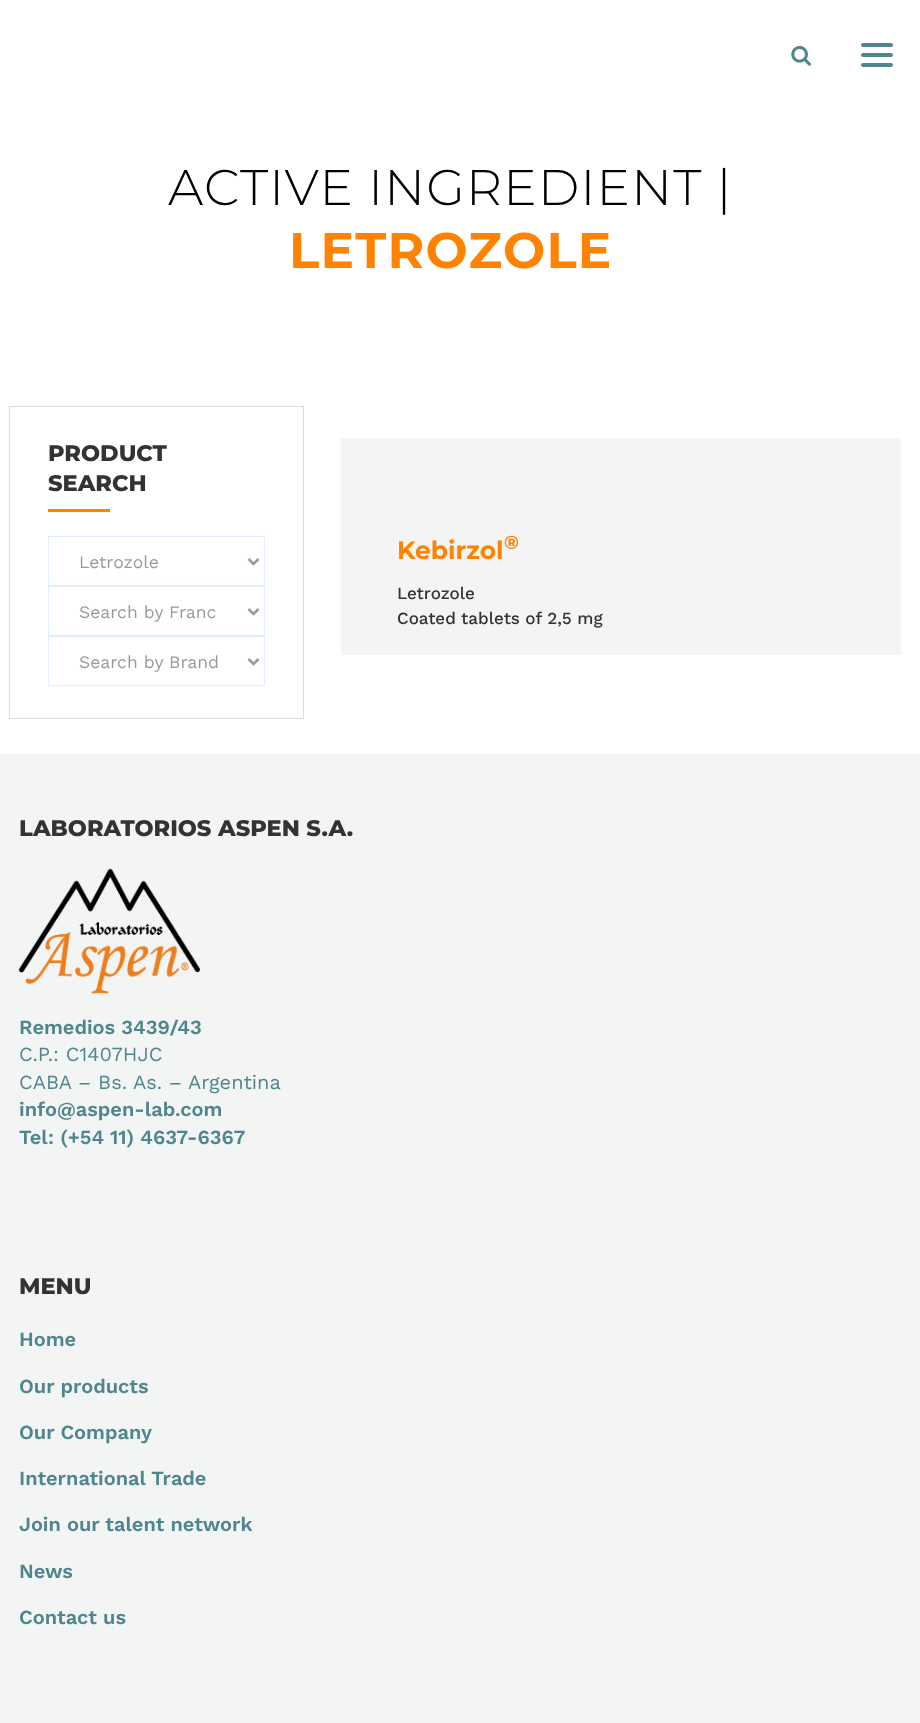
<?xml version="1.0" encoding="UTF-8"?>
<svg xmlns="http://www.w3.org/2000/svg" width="920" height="1723">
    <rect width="100%" height="100%" fill="#FFFFFF"/>
    <image x="791" y="45" width="20" height="21" href="img_01.png"/>
    <rect x="861" y="53" width="32" height="4" rx="2" fill="#4F868E"/>
    <rect x="861" y="43" width="32" height="4" rx="2" fill="#4F868E"/>
    <rect x="861" y="63" width="32" height="4" rx="2" fill="#4F868E"/>
    <text x="168" y="205" font-family="Montserrat" font-size="50" font-weight="300" letter-spacing="1.25" fill="#000000">ACTIVE INGREDIENT |</text>
    <text x="289" y="268" font-family="Montserrat" font-size="50" font-weight="700" letter-spacing="1.25" fill="#FF8200">LETROZOLE</text>
    <rect x="9.5" y="406.5" width="294" height="312" fill="none" stroke="#DDDDD4"/>
    <text font-family="Montserrat" font-size="22.5" font-weight="800" fill="#333333">
        <tspan x="48" y="461">PRODUCT</tspan>
        <tspan x="48" y="491">SEARCH</tspan>
    </text>
    <rect x="48" y="509" width="62" height="3" fill="#FF8200"/>
    <rect x="48.5" y="536.5" width="216" height="49" fill="none" stroke="#E1EEFF"/>
    <path d="M 248.5 559 L 253.5 564 L 258.5 559" fill="none" stroke="#999999" stroke-width="2.5"/>
    <text x="79" y="568" font-family="Work Sans" font-size="17.5" fill="#999999">Letrozole</text>
    <rect x="48.5" y="586.5" width="216" height="49" fill="none" stroke="#E1EEFF"/>
    <path d="M 248.5 609 L 253.5 614 L 258.5 609" fill="none" stroke="#999999" stroke-width="2.5"/>
    <text x="79" y="618" font-family="Work Sans" font-size="17.5" fill="#999999">Search by Franc</text>
    <rect x="48.5" y="636.5" width="216" height="49" fill="none" stroke="#E1EEFF"/>
    <path d="M 248.5 659 L 253.5 664 L 258.5 659" fill="none" stroke="#999999" stroke-width="2.5"/>
    <text x="79" y="668" font-family="Work Sans" font-size="17.5" fill="#999999">Search by Brand</text>
    <rect x="341" y="438" width="560" height="217" fill="#F3F4F4"/>
    <text x="397" y="559" font-family="Montserrat" font-size="25" font-weight="700" fill="#FF8200">Kebirzol</text>
    <text x="504" y="549" font-family="Montserrat" font-size="19" font-weight="700" fill="#FF8200">®</text>
    <text font-family="Work Sans" font-size="17" font-weight="500" fill="#333333">
        <tspan x="397" y="599">Letrozole</tspan>
        <tspan x="397" y="624">Coated tablets of 2,5 mg</tspan>
    </text>
    <rect x="0" y="754" width="920" height="969" fill="#F3F4F4"/>
    <text x="19" y="836" font-family="Montserrat" font-size="22.5" font-weight="800" fill="#333333">LABORATORIOS ASPEN S.A.</text>
    <image x="18" y="868" width="182" height="126" href="img_02.png"/>
    <text x="19" y="1034" font-family="Work Sans" font-size="20" font-weight="600" fill="#4F868E">Remedios 3439/43</text>
    <text font-family="Work Sans" font-size="20" fill="#4F868E">
        <tspan x="19" y="1061">C.P.: C1407HJC</tspan>
        <tspan x="19" y="1089">CABA – Bs. As. – Argentina</tspan>
    </text>
    <text font-family="Work Sans" font-size="20" font-weight="600" fill="#4F868E">
        <tspan x="19" y="1116">info@aspen-lab.com</tspan>
        <tspan x="19" y="1144">Tel: (+54 11) 4637-6367</tspan>
    </text>
    <text x="19" y="1294" font-family="Montserrat" font-size="22.5" font-weight="800" fill="#333333">MENU</text>
    <text x="19" y="1346" font-family="Work Sans" font-size="20" font-weight="600" fill="#4F868E">Home</text>
    <text x="19" y="1393" font-family="Work Sans" font-size="20" font-weight="600" fill="#4F868E">Our products</text>
    <text x="19" y="1439" font-family="Work Sans" font-size="20" font-weight="600" fill="#4F868E">Our Company</text>
    <text x="19" y="1485" font-family="Work Sans" font-size="20" font-weight="600" fill="#4F868E">International Trade</text>
    <text x="19" y="1531" font-family="Work Sans" font-size="20" font-weight="600" fill="#4F868E">Join our talent network</text>
    <text x="19" y="1578" font-family="Work Sans" font-size="20" font-weight="600" fill="#4F868E">News</text>
    <text x="19" y="1624" font-family="Work Sans" font-size="20" font-weight="600" fill="#4F868E">Contact us</text>
</svg>
